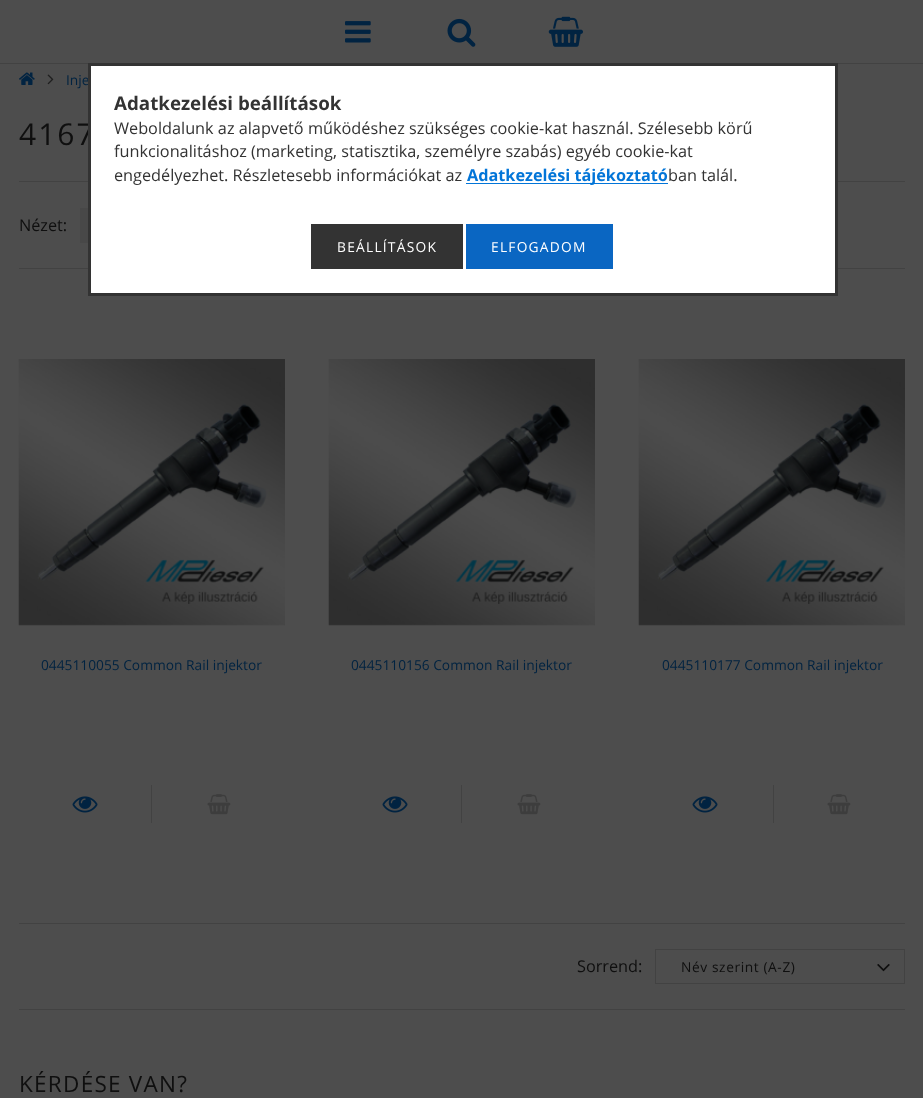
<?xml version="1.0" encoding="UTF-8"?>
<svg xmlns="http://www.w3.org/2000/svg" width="923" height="1098">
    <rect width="100%" height="100%" fill="#4D4D4D"/>
    <rect x="0" y="63" width="923" height="1" fill="#424242"/>
    <image x="345" y="21" width="26" height="22" href="img_01.png"/>
    <image x="447" y="18" width="29" height="29" href="img_02.png"/>
    <image x="548" y="16" width="35" height="31" href="img_03.png"/>
    <image x="19" y="72" width="16" height="13" href="img_04.png"/>
    <image x="47" y="74" width="7" height="11" href="img_05.png"/>
    <text x="66" y="85" font-family="Open Sans" font-size="13.75" fill="#012341">Inje</text>
    <text x="19" y="145" font-family="Open Sans" font-size="30" letter-spacing="2" fill="#0F0F0F">4167</text>
    <rect x="19" y="181" width="886" height="1" fill="#424242"/>
    <text x="19" y="231" font-family="Open Sans" font-size="16.25" fill="#0F0F0F">Nézet:</text>
    <rect x="80" y="208" width="8" height="35" fill="#484848"/>
    <rect x="19" y="268" width="886" height="1" fill="#424242"/>
    <image x="18" y="359" width="267" height="267" href="img_06.png"/>
    <text x="41" y="670" font-family="Open Sans" font-size="13.75" fill="#012341">0445110055 Common Rail injektor</text>
    <image x="72" y="796" width="26" height="17" href="img_07.png"/>
    <rect x="151" y="785" width="1" height="38" fill="#424242"/>
    <image x="207" y="794" width="24" height="21" href="img_08.png"/>
    <image x="328" y="359" width="267" height="267" href="img_06.png"/>
    <text x="351" y="670" font-family="Open Sans" font-size="13.75" fill="#012341">0445110156 Common Rail injektor</text>
    <image x="382" y="796" width="26" height="17" href="img_07.png"/>
    <rect x="461" y="785" width="1" height="38" fill="#424242"/>
    <image x="517" y="794" width="24" height="21" href="img_08.png"/>
    <image x="638" y="359" width="267" height="267" href="img_06.png"/>
    <text x="662" y="670" font-family="Open Sans" font-size="13.75" fill="#012341">0445110177 Common Rail injektor</text>
    <image x="692" y="796" width="26" height="17" href="img_07.png"/>
    <rect x="773" y="785" width="1" height="38" fill="#424242"/>
    <image x="827" y="794" width="24" height="21" href="img_08.png"/>
    <rect x="19" y="923" width="886" height="1" fill="#424242"/>
    <text x="577" y="972" font-family="Open Sans" font-size="16.25" fill="#0F0F0F">Sorrend:</text>
    <rect x="655.5" y="949.5" width="249" height="34" fill="none" stroke="#424242"/>
    <text x="681" y="972" font-family="Open Sans" font-size="13.75" letter-spacing="0.6" fill="#0F0F0F">Név szerint (A-Z)</text>
    <image x="877" y="964" width="13" height="8" href="img_09.png"/>
    <rect x="19" y="1009" width="886" height="1" fill="#424242"/>
    <text x="19" y="1092" font-family="Open Sans" font-size="22.5" letter-spacing="1.25" fill="#0F0F0F">KÉRDÉSE VAN?</text>
    <rect x="89.5" y="64.5" width="747" height="230" fill="#FFFFFF" stroke="#333333" stroke-width="3"/>
    <text x="114" y="110" font-family="Open Sans" font-size="18.75" font-weight="700" fill="#333333">Adatkezelési beállítások</text>
    <text font-family="Open Sans" font-size="16.25" fill="#333333">
        <tspan x="114" y="134">Weboldalunk az alapvető működéshez szükséges cookie-kat használ. Szélesebb körű</tspan>
        <tspan x="114" y="157">funkcionalitáshoz (marketing, statisztika, személyre szabás) egyéb cookie-kat</tspan>
        <tspan x="114" y="181">engedélyezhet. Részletesebb információkat az</tspan>
    </text>
    <rect x="466" y="183" width="202" height="1" fill="#0275D8"/>
    <text x="467" y="181" font-family="Open Sans" font-size="16.25" font-weight="700" fill="#0275D8">Adatkezelési tájékoztató</text>
    <text x="668" y="181" font-family="Open Sans" font-size="16.25" fill="#333333">ban talál.</text>
    <rect x="311" y="224" width="152" height="45" fill="#333333"/>
    <text x="337" y="252" font-family="Open Sans" font-size="13.75" letter-spacing="1.25" fill="#FFFFFF">BEÁLLÍTÁSOK</text>
    <rect x="466" y="224" width="147" height="45" fill="#0A66C2"/>
    <text x="491" y="252" font-family="Open Sans" font-size="13.75" letter-spacing="1.25" fill="#FFFFFF">ELFOGADOM</text>
</svg>
